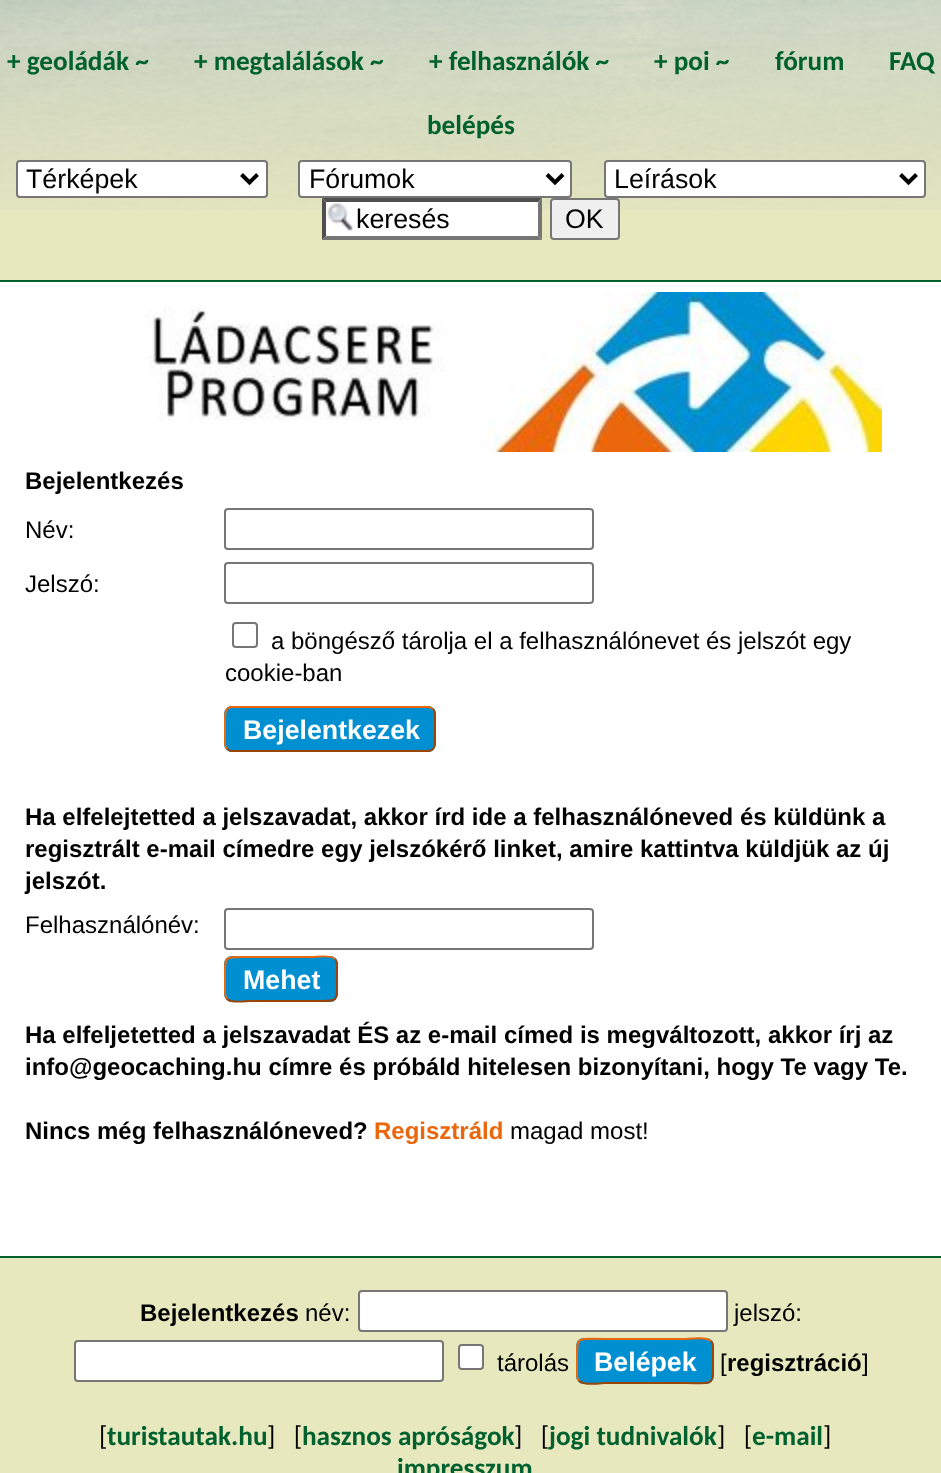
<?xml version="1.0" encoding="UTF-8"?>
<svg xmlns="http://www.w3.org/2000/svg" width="941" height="1473">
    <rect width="100%" height="100%" fill="#E8E8BF"/>
    <image x="0" y="0" width="941" height="210" href="img_01.png"/>
    <text x="7" y="70" font-family="Carlito" font-size="27.25" font-weight="700" fill="#00612E">+ geoládák ~</text>
    <text x="194" y="70" font-family="Carlito" font-size="27.25" font-weight="700" fill="#00612E">+ megtalálások ~</text>
    <text x="429" y="70" font-family="Carlito" font-size="27.25" font-weight="700" fill="#00612E">+ felhasználók ~</text>
    <text x="654" y="70" font-family="Carlito" font-size="27.25" font-weight="700" fill="#00612E">+ poi ~</text>
    <text x="775" y="70" font-family="Carlito" font-size="27.25" font-weight="700" fill="#00612E">fórum</text>
    <text x="889" y="70" font-family="Carlito" font-size="27.25" font-weight="700" fill="#00612E">FAQ</text>
    <text x="427" y="134" font-family="Carlito" font-size="27.25" font-weight="700" fill="#00612E">belépés</text>
    <rect x="17" y="161" width="250" height="36" rx="3" fill="#FFFFFF" stroke="#767676" stroke-width="2"/>
    <path d="M 241.5 174.5 L 249.5 182.5 L 257.5 174.5" fill="none" stroke="#000000" stroke-width="4"/>
    <text x="26" y="188" font-family="Liberation Sans" font-size="26.75" fill="#000000">Térképek</text>
    <rect x="299" y="161" width="272" height="36" rx="3" fill="#FFFFFF" stroke="#767676" stroke-width="2"/>
    <path d="M 547 174.5 L 555 182.5 L 563 174.5" fill="none" stroke="#000000" stroke-width="4"/>
    <text x="309" y="188" font-family="Liberation Sans" font-size="26.75" fill="#000000">Fórumok</text>
    <rect x="605" y="161" width="320" height="36" rx="3" fill="#FFFFFF" stroke="#767676" stroke-width="2"/>
    <path d="M 900.5 174.5 L 908.5 182.5 L 916.5 174.5" fill="none" stroke="#000000" stroke-width="4"/>
    <text x="614" y="188" font-family="Liberation Sans" font-size="26.75" fill="#000000">Leírások</text>
    <rect x="322" y="198" width="220" height="42" fill="#FFFFFF"/>
    <image x="327" y="203" width="26" height="28" href="img_02.png"/>
    <path d="M 322 198 H 542 L 538 202 H 326 Z" fill="#4F4F4F"/>
    <path d="M 542 198 V 240 L 538 236 V 202 Z" fill="#767676"/>
    <path d="M 542 240 H 322 L 326 236 H 538 Z" fill="#767676"/>
    <path d="M 322 240 V 198 L 326 202 V 236 Z" fill="#4F4F4F"/>
    <text x="356" y="228" font-family="Liberation Sans" font-size="26.75" fill="#000000">keresés</text>
    <rect x="551" y="199" width="68" height="40" rx="3" fill="#EFEFEF" stroke="#767676" stroke-width="2"/>
    <text x="565" y="228" font-family="Liberation Sans" font-size="26.75" fill="#000000">OK</text>
    <rect x="0" y="282" width="941" height="974" fill="#FFFFFF"/>
    <rect x="0" y="280" width="941" height="2" fill="#00612E"/>
    <rect x="0" y="1256" width="941" height="2" fill="#00612E"/>
    <image x="146" y="292" width="736" height="160" href="img_03.png"/>
    <text x="25" y="489" font-family="Liberation Sans" font-size="24" font-weight="700" fill="#000000">Bejelentkezés</text>
    <text x="25" y="538" font-family="Liberation Sans" font-size="24" fill="#000000">Név:</text>
    <rect x="225" y="509" width="368" height="40" rx="3" fill="none" stroke="#767676" stroke-width="2"/>
    <text x="25" y="592" font-family="Liberation Sans" font-size="24" fill="#000000">Jelszó:</text>
    <rect x="225" y="563" width="368" height="40" rx="3" fill="none" stroke="#767676" stroke-width="2"/>
    <rect x="233" y="623" width="24" height="24" rx="3" fill="none" stroke="#767676" stroke-width="2"/>
    <text x="271" y="649" font-family="Liberation Sans" font-size="24" fill="#000000">a böngésző tárolja el a felhasználónevet és jelszót egy</text>
    <text x="225" y="681" font-family="Liberation Sans" font-size="24" fill="#000000">cookie-ban</text>
    <rect x="224" y="706" width="212" height="46" rx="8" fill="#008FD1"/>
    <path d="M 433 709 C 435.5 711.5 435 715.5 435 719 V 739 C 435 744 435 751 428 751 H 230.5 L 227 749" fill="none" stroke="#9C4508" stroke-width="2"/>
    <path d="M 227 749 C 224.5 746.5 225 742.5 225 739 V 719 C 225 714 225 707 232 707 H 429.5 L 433 709" fill="none" stroke="#EA670C" stroke-width="2"/>
    <text x="243" y="739" font-family="Liberation Sans" font-size="26.75" font-weight="700" fill="#FFFFFF">Bejelentkezek</text>
    <text font-family="Liberation Sans" font-size="24" font-weight="700" fill="#000000">
        <tspan x="25" y="825">Ha elfelejtetted a jelszavadat, akkor írd ide a felhasználóneved és küldünk a</tspan>
        <tspan x="25" y="857">regisztrált e-mail címedre egy jelszókérő linket, amire kattintva küldjük az új</tspan>
        <tspan x="25" y="889">jelszót.</tspan>
    </text>
    <text x="25" y="933" font-family="Liberation Sans" font-size="24" fill="#000000">Felhasználónév:</text>
    <rect x="225" y="909" width="368" height="40" rx="3" fill="none" stroke="#767676" stroke-width="2"/>
    <rect x="224" y="956" width="114" height="46" rx="8" fill="#008FD1"/>
    <path d="M 335 959 C 337.5 961.5 337 965.5 337 969 V 979 C 337 1003.5 339 1001 313.5 1001 H 248.5 C 246.5 1001 231.5 1003.5 227 999" fill="none" stroke="#9C4508" stroke-width="2"/>
    <path d="M 227 999 C 224.5 996.5 225 992.5 225 989 V 979 C 225 954.5 223 957 248.5 957 H 313.5 C 315.5 957 330.5 954.5 335 959" fill="none" stroke="#EA670C" stroke-width="2"/>
    <text x="243" y="989" font-family="Liberation Sans" font-size="26.75" font-weight="700" fill="#FFFFFF">Mehet</text>
    <text font-family="Liberation Sans" font-size="24" font-weight="700" fill="#000000">
        <tspan x="25" y="1043">Ha elfeljetetted a jelszavadat ÉS az e-mail címed is megváltozott, akkor írj az</tspan>
        <tspan x="25" y="1075">info@geocaching.hu címre és próbáld hitelesen bizonyítani, hogy Te vagy Te.</tspan>
    </text>
    <text x="25" y="1139" font-family="Liberation Sans" font-size="24" font-weight="700" fill="#000000">Nincs még felhasználóneved?</text>
    <text x="374" y="1139" font-family="Liberation Sans" font-size="24" font-weight="700" fill="#EA670C">Regisztráld</text>
    <text x="510" y="1139" font-family="Liberation Sans" font-size="24" fill="#000000">magad most!</text>
    <text x="140" y="1321" font-family="Liberation Sans" font-size="24" font-weight="700" fill="#000000">Bejelentkezés</text>
    <text x="305" y="1321" font-family="Liberation Sans" font-size="24" fill="#000000">név:</text>
    <rect x="359" y="1291" width="368" height="40" rx="3" fill="#FFFFFF" stroke="#767676" stroke-width="2"/>
    <text x="734" y="1321" font-family="Liberation Sans" font-size="24" fill="#000000">jelszó:</text>
    <rect x="75" y="1341" width="368" height="40" rx="3" fill="#FFFFFF" stroke="#767676" stroke-width="2"/>
    <rect x="459" y="1345" width="24" height="24" rx="3" fill="#FFFFFF" stroke="#767676" stroke-width="2"/>
    <text x="497" y="1371" font-family="Liberation Sans" font-size="24" fill="#000000">tárolás</text>
    <rect x="576" y="1338" width="138" height="46" rx="8" fill="#008FD1"/>
    <path d="M 711 1341 C 713.5 1343.5 713 1347.5 713 1351 V 1361 C 713 1387 714.5 1383 685.5 1383 H 604.5 C 602 1383 584 1386 579 1381" fill="none" stroke="#9C4508" stroke-width="2"/>
    <path d="M 579 1381 C 576.5 1378.5 577 1374.5 577 1371 V 1361 C 577 1335 575.5 1339 604.5 1339 H 685.5 C 688 1339 706 1336 711 1341" fill="none" stroke="#EA670C" stroke-width="2"/>
    <text x="594" y="1371" font-family="Liberation Sans" font-size="26.75" font-weight="700" fill="#FFFFFF">Belépek</text>
    <text x="720" y="1371" font-family="Liberation Sans" font-size="24" fill="#000000">[</text>
    <text x="727" y="1371" font-family="Liberation Sans" font-size="24" font-weight="700" fill="#000000">regisztráció</text>
    <text x="862" y="1371" font-family="Liberation Sans" font-size="24" fill="#000000">]</text>
    <text x="99" y="1445" font-family="Carlito" font-size="27.25" fill="#000000">[</text>
    <text x="107" y="1445" font-family="Carlito" font-size="27.25" font-weight="700" fill="#00612E">turistautak.hu</text>
    <text x="267" y="1445" font-family="Carlito" font-size="27.25" fill="#000000" xml:space="preserve">]   [</text>
    <text x="302" y="1445" font-family="Carlito" font-size="27.25" font-weight="700" fill="#00612E">hasznos apróságok</text>
    <text x="514" y="1445" font-family="Carlito" font-size="27.25" fill="#000000" xml:space="preserve">]   [</text>
    <text x="549" y="1445" font-family="Carlito" font-size="27.25" font-weight="700" fill="#00612E">jogi tudnivalók</text>
    <text x="717" y="1445" font-family="Carlito" font-size="27.25" fill="#000000" xml:space="preserve">]   [</text>
    <text x="752" y="1445" font-family="Carlito" font-size="27.25" font-weight="700" fill="#00612E">e-mail</text>
    <text x="823" y="1445" font-family="Carlito" font-size="27.25" fill="#000000">]</text>
    <text x="397" y="1477" font-family="Carlito" font-size="27.25" font-weight="700" fill="#00612E">impresszum</text>
</svg>
